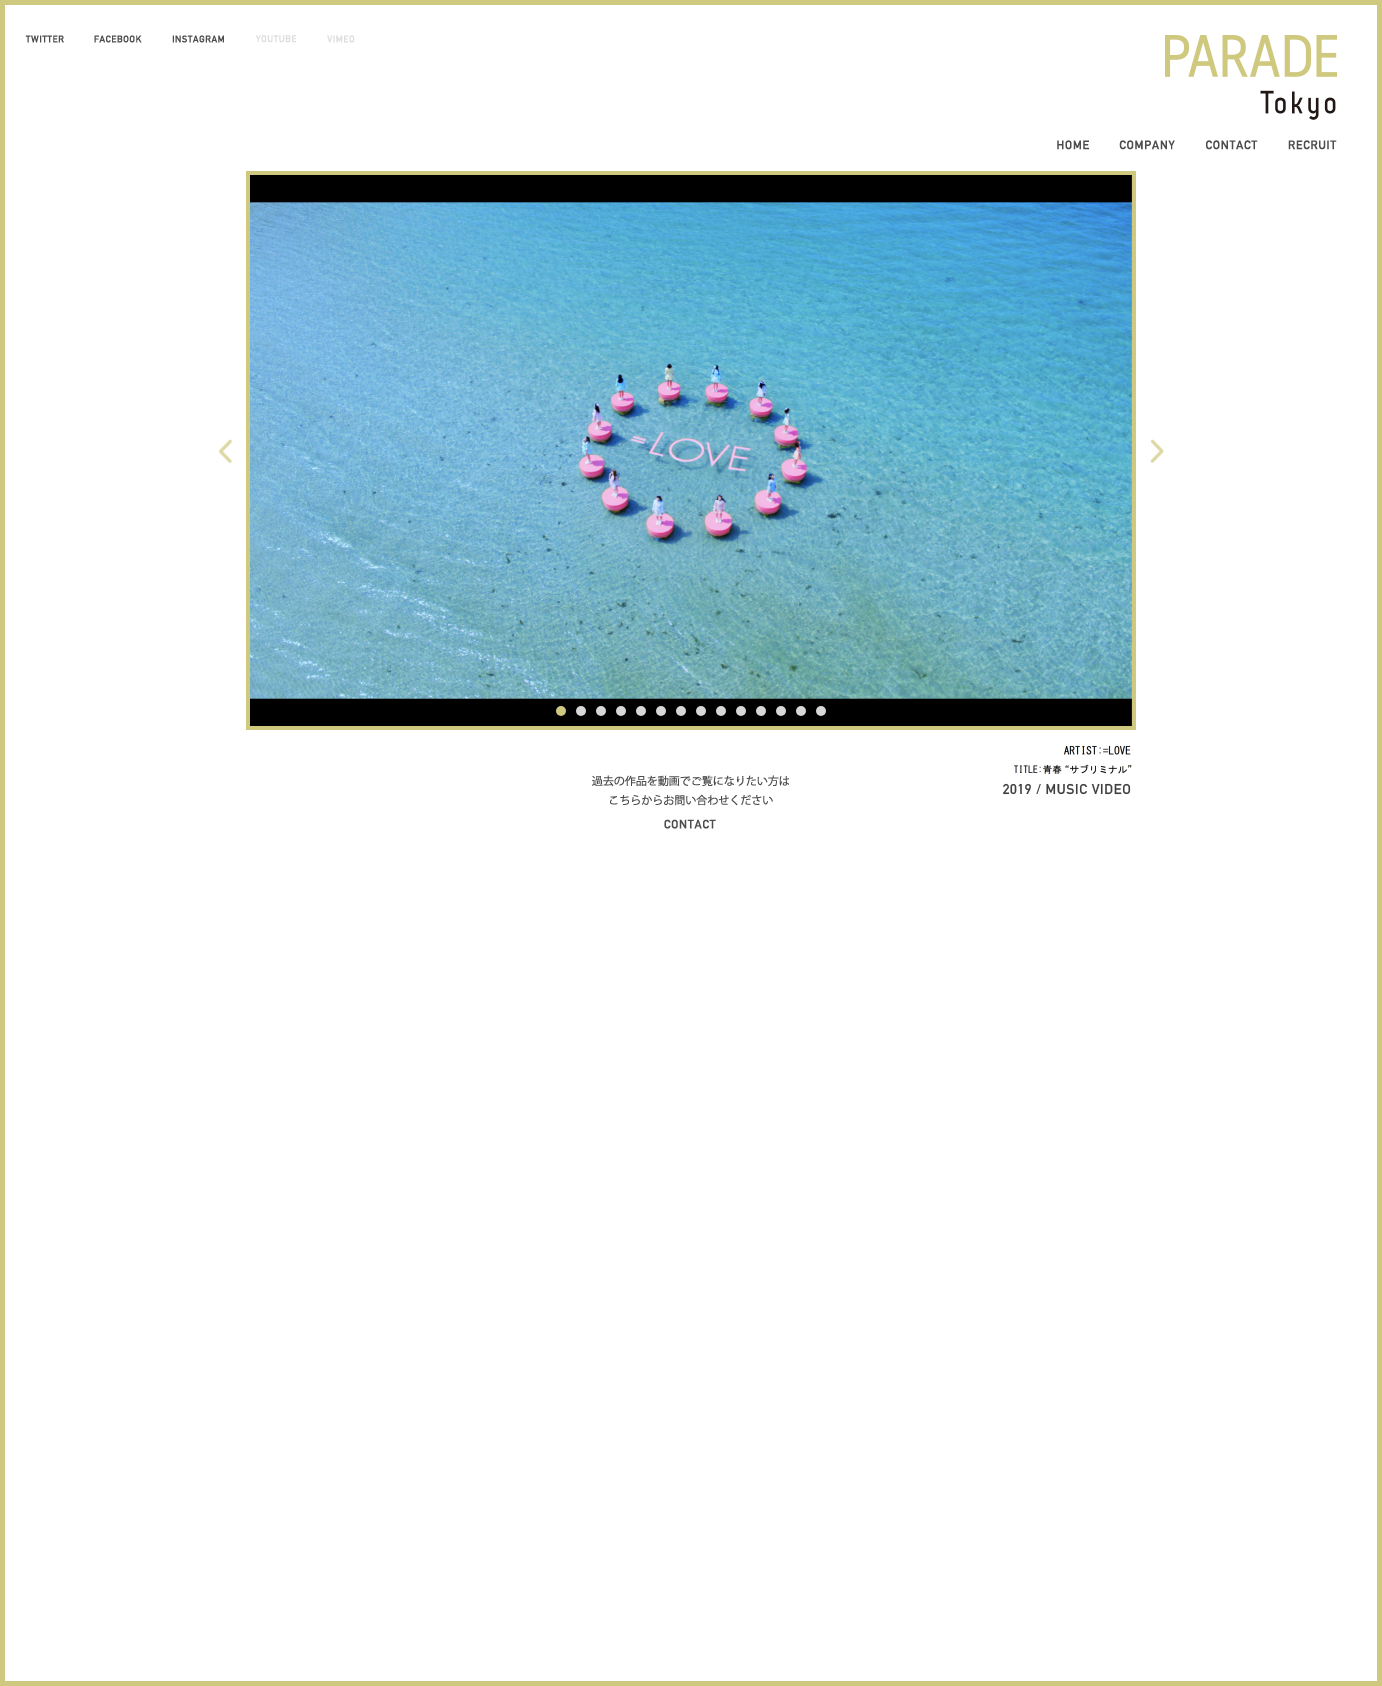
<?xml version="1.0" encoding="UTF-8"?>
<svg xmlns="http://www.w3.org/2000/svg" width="1382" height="1686">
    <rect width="100%" height="100%" fill="#CFC980"/>
    <rect x="5" y="5" width="1372" height="1676" fill="#FFFFFF"/>
    <image x="25" y="35" width="39" height="8" href="img_01.png"/>
    <image x="94" y="35" width="48" height="8" href="img_02.png"/>
    <image x="172" y="35" width="52" height="8" href="img_03.png"/>
    <image x="256" y="35" width="41" height="8" href="img_04.png"/>
    <image x="327" y="35" width="28" height="8" href="img_05.png"/>
    <image x="1165" y="35" width="172" height="85" href="img_06.png"/>
    <image x="1057" y="140" width="32" height="10" href="img_07.png"/>
    <image x="1119" y="140" width="56" height="10" href="img_08.png"/>
    <image x="1206" y="140" width="52" height="10" href="img_09.png"/>
    <image x="1288" y="140" width="49" height="10" href="img_10.png"/>
    <rect x="248" y="173" width="886" height="555" fill="none" stroke="#CFC980" stroke-width="4"/>
    <image x="250" y="175" width="882" height="551" href="img_11.png"/>
    <image x="218" y="439" width="14" height="24" href="img_12.png"/>
    <image x="1150" y="439" width="14" height="24" href="img_13.png"/>
    <circle cx="561" cy="711" r="5" fill="#CFC980"/>
    <circle cx="581" cy="711" r="5" fill="#D8D8D8"/>
    <circle cx="601" cy="711" r="5" fill="#D8D8D8"/>
    <circle cx="621" cy="711" r="5" fill="#D8D8D8"/>
    <circle cx="641" cy="711" r="5" fill="#D8D8D8"/>
    <circle cx="661" cy="711" r="5" fill="#D8D8D8"/>
    <circle cx="681" cy="711" r="5" fill="#D8D8D8"/>
    <circle cx="701" cy="711" r="5" fill="#D8D8D8"/>
    <circle cx="721" cy="711" r="5" fill="#D8D8D8"/>
    <circle cx="741" cy="711" r="5" fill="#D8D8D8"/>
    <circle cx="761" cy="711" r="5" fill="#D8D8D8"/>
    <circle cx="781" cy="711" r="5" fill="#D8D8D8"/>
    <circle cx="801" cy="711" r="5" fill="#D8D8D8"/>
    <circle cx="821" cy="711" r="5" fill="#D8D8D8"/>
    <image x="1063" y="745" width="68" height="10" href="img_14.png"/>
    <image x="1014" y="764" width="118" height="10" href="img_15.png"/>
    <image x="1003" y="783" width="128" height="12" href="img_16.png"/>
    <image x="592" y="775" width="198" height="54" href="img_17.png"/>
</svg>
